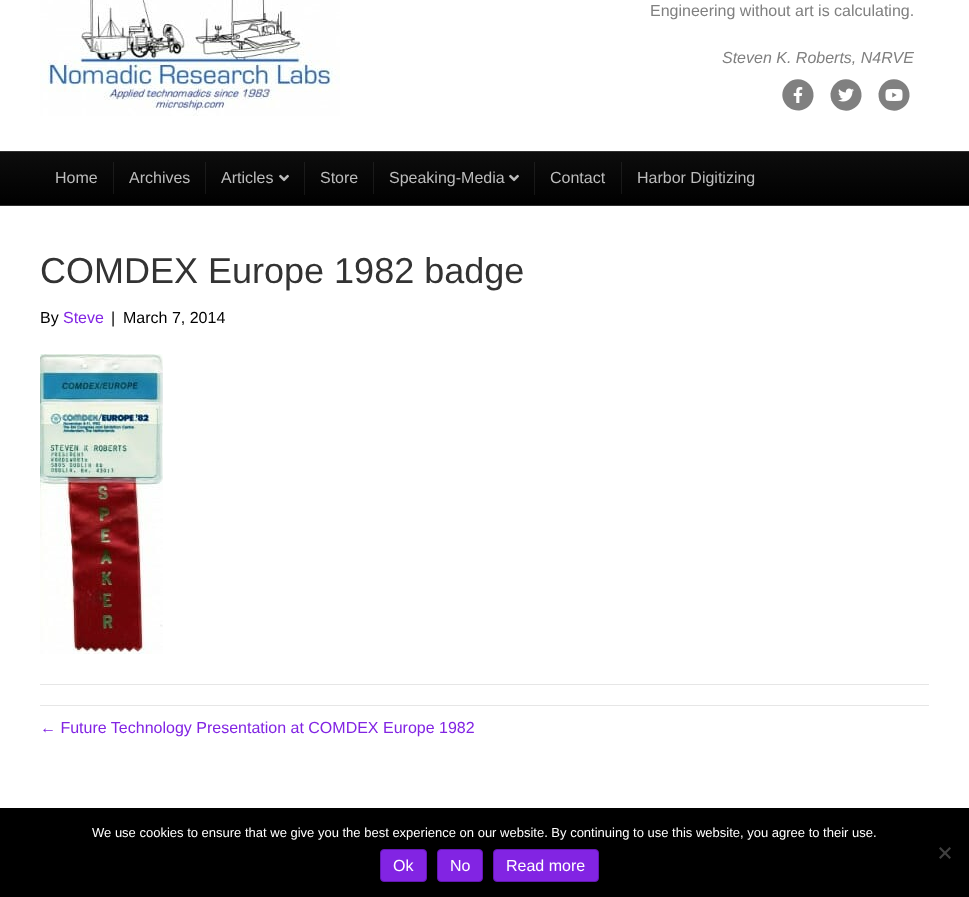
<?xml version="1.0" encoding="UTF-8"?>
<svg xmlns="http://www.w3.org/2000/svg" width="969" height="897">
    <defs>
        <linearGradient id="g1" gradientUnits="userSpaceOnUse" x1="485" y1="152" x2="485" y2="205"><stop offset="0" stop-color="#0D0D0D"/><stop offset="1" stop-color="#000000"/></linearGradient>
        <linearGradient id="g2" gradientUnits="userSpaceOnUse" x1="485" y1="152" x2="485" y2="205"><stop offset="0" stop-color="#1F1F1F"/><stop offset="1" stop-color="#131313"/></linearGradient>
    </defs>
    <rect width="100%" height="100%" fill="#FFFFFF"/>
    <image x="40" y="0" width="300" height="116" href="img_01.png"/>
    <text x="650" y="16" font-family="Liberation Sans" font-size="16" fill="#808080">Engineering without art is calculating.</text>
    <text x="722" y="63" font-family="Liberation Sans" font-size="16" font-style="italic" fill="#808080">Steven K. Roberts, N4RVE</text>
    <path d="M 787 84 C 797.5 73.5 814.5 82 813.5 96.5 C 813 100 811.5 103.5 809 106 C 806.5 108.5 803 110 799.5 110.5 C 785 111.5 776.5 94.5 787 84 Z" fill="#808080"/>
    <image x="793" y="87" width="10" height="16" href="img_02.png"/>
    <path d="M 835 84 C 845.5 73.5 862.5 82 861.5 96.5 C 861 100 859.5 103.5 857 106 C 846.5 116.5 829.5 108 830.5 93.5 C 831 90 832.5 86.5 835 84 Z" fill="#808080"/>
    <image x="838" y="88" width="16" height="14" href="img_03.png"/>
    <path d="M 883 84 C 893.5 73.5 910.5 82 909.5 96.5 C 909 100 907.5 103.5 905 106 C 894.5 116.5 877.5 108 878.5 93.5 C 879 90 880.5 86.5 883 84 Z" fill="#808080"/>
    <image x="885" y="89" width="18" height="12" href="img_04.png"/>
    <rect x="0" y="152" width="969" height="53" fill="url(#g1)"/>
    <rect x="621" y="162" width="1" height="32" fill="url(#g2)"/>
    <rect x="534" y="162" width="1" height="33" fill="url(#g2)"/>
    <rect x="373" y="162" width="1" height="32" fill="url(#g2)"/>
    <rect x="304" y="162" width="1" height="33" fill="url(#g2)"/>
    <rect x="205" y="162" width="1" height="32" fill="url(#g2)"/>
    <rect x="113" y="162" width="1" height="32" fill="url(#g2)"/>
    <rect x="0" y="151" width="969" height="1" fill="#303030"/>
    <rect x="0" y="205" width="969" height="1" fill="#303030"/>
    <text x="55" y="183" font-family="Liberation Sans" font-size="16" fill="#BCBCBC">Home</text>
    <text x="129" y="183" font-family="Liberation Sans" font-size="16" fill="#BCBCBC">Archives</text>
    <text x="221" y="183" font-family="Liberation Sans" font-size="16" fill="#BCBCBC">Articles</text>
    <image x="279" y="174" width="10" height="8" href="img_05.png"/>
    <text x="320" y="183" font-family="Liberation Sans" font-size="16" fill="#BCBCBC">Store</text>
    <text x="389" y="183" font-family="Liberation Sans" font-size="16" fill="#BCBCBC">Speaking-Media</text>
    <image x="509" y="174" width="10" height="8" href="img_05.png"/>
    <text x="550" y="183" font-family="Liberation Sans" font-size="16" fill="#BCBCBC">Contact</text>
    <text x="637" y="183" font-family="Liberation Sans" font-size="16" fill="#BCBCBC">Harbor Digitizing</text>
    <text x="40" y="283" font-family="Liberation Sans" font-size="36" fill="#333333">COMDEX Europe 1982 badge</text>
    <text x="40" y="323" font-family="Liberation Sans" font-size="16" fill="#000000">By</text>
    <text x="63" y="323" font-family="Liberation Sans" font-size="16" fill="#8224E3">Steve</text>
    <text x="111" y="323" font-family="Liberation Sans" font-size="16" fill="#000000">|</text>
    <text x="123" y="323" font-family="Liberation Sans" font-size="16" fill="#000000">March 7, 2014</text>
    <image x="40" y="354" width="123" height="300" href="img_06.png"/>
    <rect x="40" y="684" width="889" height="1" fill="#E6E6E6"/>
    <rect x="40" y="705" width="889" height="1" fill="#E6E6E6"/>
    <text x="40" y="733" font-family="Liberation Sans" font-size="16" fill="#8224E3">← Future Technology Presentation at COMDEX Europe 1982</text>
    <rect x="0" y="808" width="969" height="89" fill="#000000"/>
    <text x="92" y="837" font-family="Liberation Sans" font-size="13" fill="#FFFFFF">We use cookies to ensure that we give you the best experience on our website. By continuing to use this website, you agree to their use.</text>
    <path d="M 949.5 847 L 951 848.5 L 940.5 859 L 939 857.5 Z" fill="#404040"/>
    <path d="M 939 848.5 L 940.5 847 L 951 857.5 L 949.5 859 Z" fill="#404040"/>
    <rect x="380.5" y="849.5" width="46" height="32" rx="3.5" fill="#8224E3" stroke="#6417B3"/>
    <text x="393" y="871" font-family="Liberation Sans" font-size="16" fill="#FFFFFF">Ok</text>
    <rect x="437.5" y="849.5" width="45" height="32" rx="3.5" fill="#8224E3" stroke="#6417B3"/>
    <text x="450" y="871" font-family="Liberation Sans" font-size="16" fill="#FFFFFF">No</text>
    <rect x="493.5" y="849.5" width="105" height="32" rx="3.5" fill="#8224E3" stroke="#6417B3"/>
    <text x="506" y="871" font-family="Liberation Sans" font-size="16" fill="#FFFFFF">Read more</text>
</svg>
